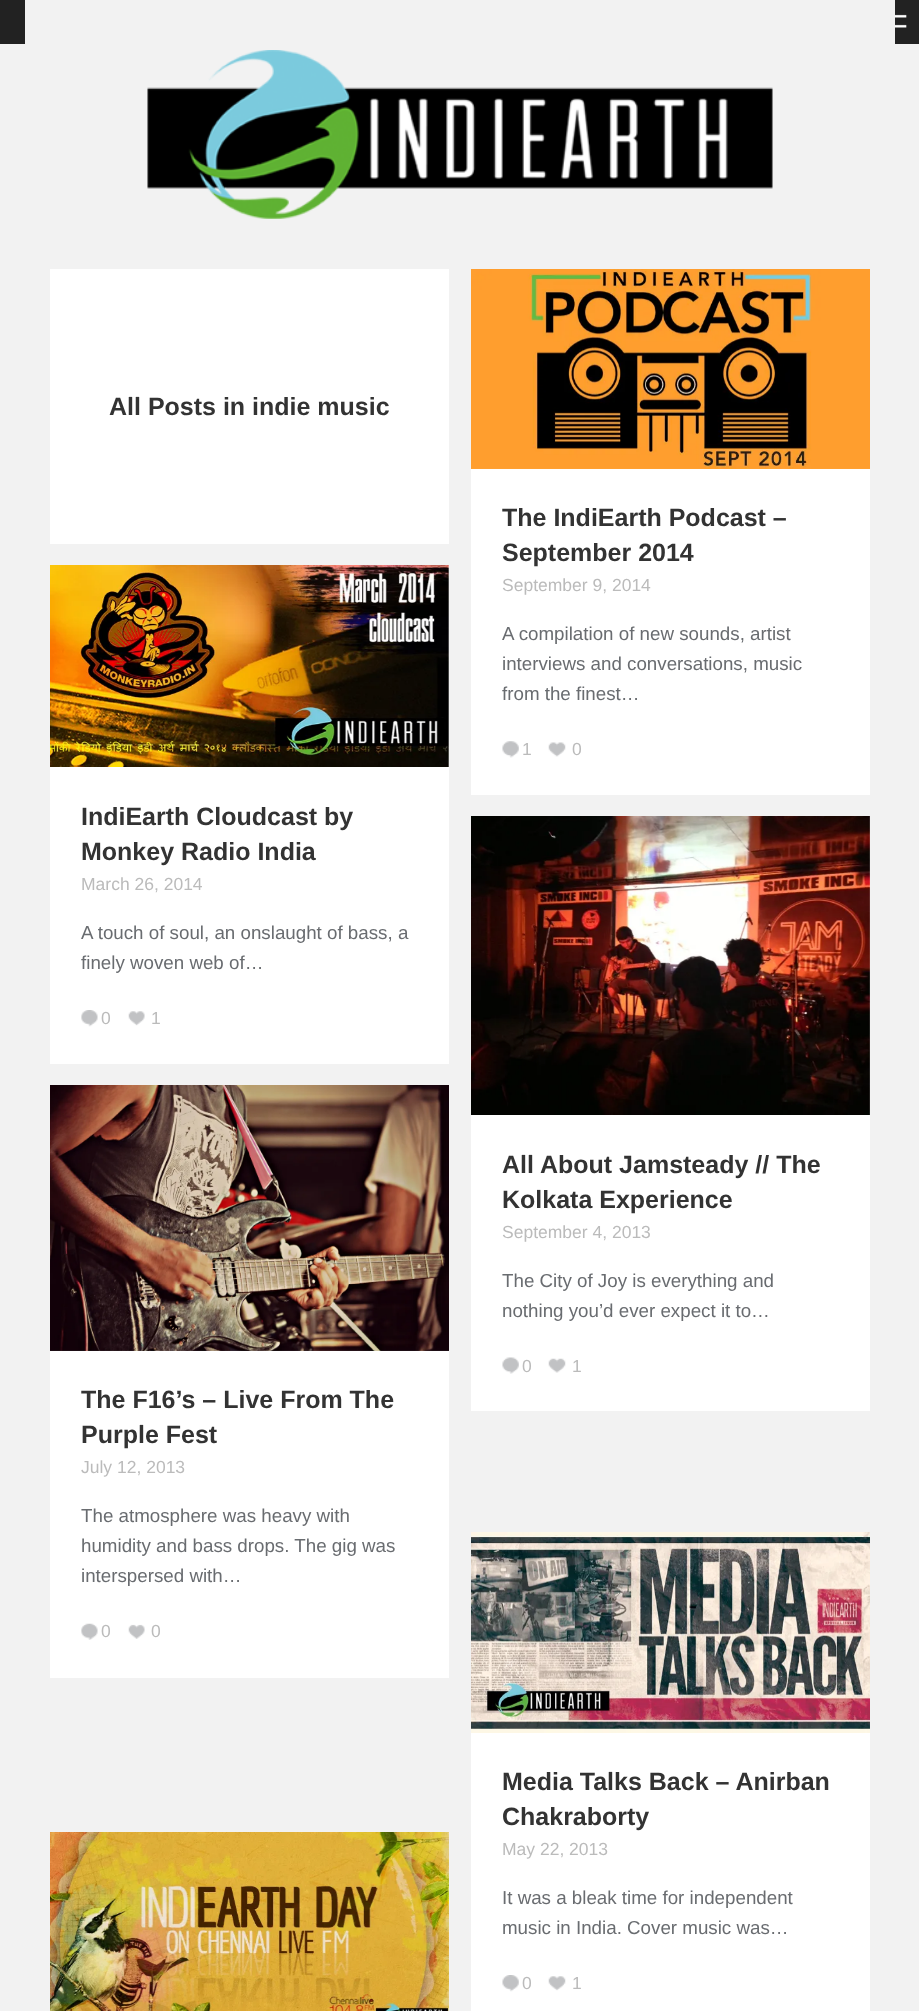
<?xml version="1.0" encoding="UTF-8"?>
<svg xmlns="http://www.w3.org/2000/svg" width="919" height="2011">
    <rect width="100%" height="100%" fill="#F2F2F2"/>
    <rect x="0" y="0" width="919" height="44" fill="#222222"/>
    <image x="895" y="14" width="12" height="14" href="img_01.png"/>
    <rect x="25" y="0" width="870" height="44" fill="#F2F2F2"/>
    <image x="147" y="50" width="626" height="169" href="img_02.png"/>
    <rect x="50" y="269" width="399" height="275" fill="#FFFFFF"/>
    <text x="109" y="415" font-family="Arimo" font-size="25" font-weight="700" fill="#333333">All Posts in indie music</text>
    <rect x="471" y="468" width="399" height="327" fill="#FFFFFF"/>
    <image x="471" y="269" width="399" height="200" href="img_03.png"/>
    <text font-family="Arimo" font-size="25" font-weight="700" fill="#333333">
        <tspan x="502" y="526">The IndiEarth Podcast –</tspan>
        <tspan x="502" y="561">September 2014</tspan>
    </text>
    <text x="502" y="591" font-family="Arimo" font-size="17.5" fill="#BBBBBB">September 9, 2014</text>
    <text font-family="Arimo" font-size="18.75" fill="#696C70">
        <tspan x="502" y="640">A compilation of new sounds, artist</tspan>
        <tspan x="502" y="670">interviews and conversations, music</tspan>
        <tspan x="502" y="700">from the finest…</tspan>
    </text>
    <image x="502" y="741" width="17" height="17" href="img_04.png"/>
    <text x="522" y="755" font-family="Arimo" font-size="17.5" fill="#BBBBBB">1</text>
    <image x="548" y="742" width="18" height="15" href="img_05.png"/>
    <text x="572" y="755" font-family="Arimo" font-size="17.5" fill="#BBBBBB">0</text>
    <rect x="50" y="565" width="399" height="499" fill="#FFFFFF"/>
    <image x="50" y="565" width="399" height="202" href="img_06.png"/>
    <text font-family="Arimo" font-size="25" font-weight="700" fill="#333333">
        <tspan x="81" y="825">IndiEarth Cloudcast by</tspan>
        <tspan x="81" y="860">Monkey Radio India</tspan>
    </text>
    <text x="81" y="890" font-family="Arimo" font-size="17.5" fill="#BBBBBB">March 26, 2014</text>
    <text font-family="Arimo" font-size="18.75" fill="#696C70">
        <tspan x="81" y="939">A touch of soul, an onslaught of bass, a</tspan>
        <tspan x="81" y="969">finely woven web of…</tspan>
    </text>
    <image x="81" y="1010" width="17" height="17" href="img_07.png"/>
    <text x="101" y="1024" font-family="Arimo" font-size="17.5" fill="#BBBBBB">0</text>
    <image x="128" y="1011" width="17" height="15" href="img_08.png"/>
    <text x="151" y="1024" font-family="Arimo" font-size="17.5" fill="#BBBBBB">1</text>
    <rect x="471" y="816" width="399" height="595" fill="#FFFFFF"/>
    <image x="471" y="816" width="399" height="299" href="img_09.png"/>
    <text font-family="Arimo" font-size="25" font-weight="700" fill="#333333">
        <tspan x="502" y="1173">All About Jamsteady // The</tspan>
        <tspan x="502" y="1208">Kolkata Experience</tspan>
    </text>
    <text x="502" y="1238" font-family="Arimo" font-size="17.5" fill="#BBBBBB">September 4, 2013</text>
    <text font-family="Arimo" font-size="18.75" fill="#696C70">
        <tspan x="502" y="1287">The City of Joy is everything and</tspan>
        <tspan x="502" y="1317">nothing you’d ever expect it to…</tspan>
    </text>
    <image x="502" y="1357" width="17" height="17" href="img_10.png"/>
    <text x="522" y="1372" font-family="Arimo" font-size="17.5" fill="#BBBBBB">0</text>
    <image x="548" y="1358" width="18" height="15" href="img_11.png"/>
    <text x="572" y="1372" font-family="Arimo" font-size="17.5" fill="#BBBBBB">1</text>
    <rect x="50" y="1350" width="399" height="328" fill="#FFFFFF"/>
    <image x="50" y="1085" width="399" height="266" href="img_12.png"/>
    <text font-family="Arimo" font-size="25" font-weight="700" fill="#333333">
        <tspan x="81" y="1408">The F16’s – Live From The</tspan>
        <tspan x="81" y="1443">Purple Fest</tspan>
    </text>
    <text x="81" y="1473" font-family="Arimo" font-size="17.5" fill="#BBBBBB">July 12, 2013</text>
    <text font-family="Arimo" font-size="18.75" fill="#696C70">
        <tspan x="81" y="1522">The atmosphere was heavy with</tspan>
        <tspan x="81" y="1552">humidity and bass drops. The gig was</tspan>
        <tspan x="81" y="1582">interspersed with…</tspan>
    </text>
    <image x="81" y="1623" width="17" height="17" href="img_13.png"/>
    <text x="101" y="1637" font-family="Arimo" font-size="17.5" fill="#BBBBBB">0</text>
    <image x="128" y="1624" width="17" height="15" href="img_14.png"/>
    <text x="151" y="1637" font-family="Arimo" font-size="17.5" fill="#BBBBBB">0</text>
    <image x="50" y="1832" width="399" height="179" href="img_15.png"/>
    <rect x="471" y="1732" width="399" height="279" fill="#FFFFFF"/>
    <image x="471" y="1532" width="399" height="201" href="img_16.png"/>
    <text font-family="Arimo" font-size="25" font-weight="700" fill="#333333">
        <tspan x="502" y="1790">Media Talks Back – Anirban</tspan>
        <tspan x="502" y="1825">Chakraborty</tspan>
    </text>
    <text x="502" y="1855" font-family="Arimo" font-size="17.5" fill="#BBBBBB">May 22, 2013</text>
    <text font-family="Arimo" font-size="18.75" fill="#696C70">
        <tspan x="502" y="1904">It was a bleak time for independent</tspan>
        <tspan x="502" y="1934">music in India. Cover music was…</tspan>
    </text>
    <image x="502" y="1975" width="17" height="17" href="img_17.png"/>
    <text x="522" y="1989" font-family="Arimo" font-size="17.5" fill="#BBBBBB">0</text>
    <image x="548" y="1976" width="18" height="15" href="img_18.png"/>
    <text x="572" y="1989" font-family="Arimo" font-size="17.5" fill="#BBBBBB">1</text>
</svg>
